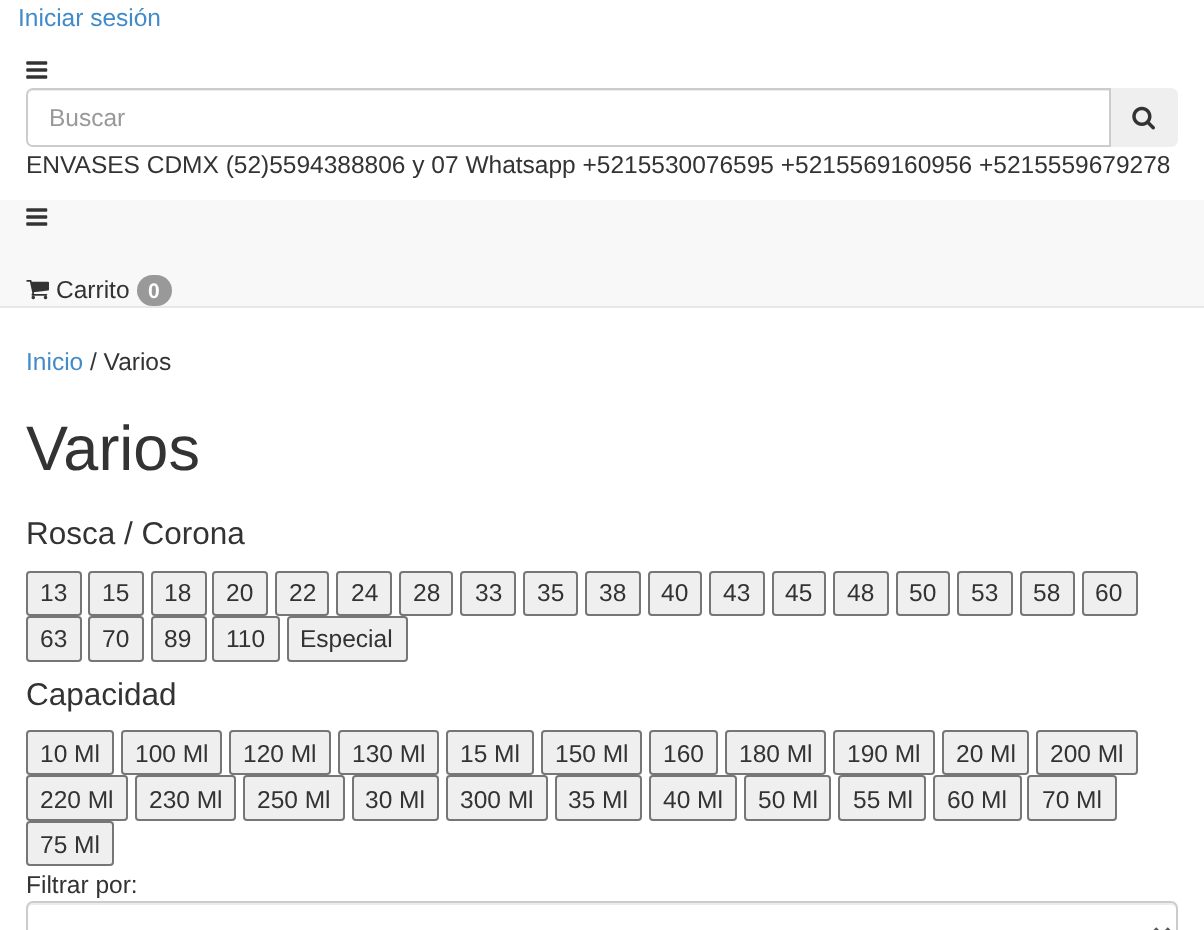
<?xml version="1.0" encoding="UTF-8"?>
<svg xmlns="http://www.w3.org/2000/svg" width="1204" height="930">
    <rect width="100%" height="100%" fill="#FFFFFF"/>
    <text x="18" y="26" font-family="Liberation Sans" font-size="24.5" fill="#428BCA">Iniciar sesión</text>
    <image x="26" y="61" width="22" height="18" href="img_01.png"/>
    <path d="M 1110 88 H 1171 C 1175 88 1178 91 1178 95 V 140 C 1178 144 1175 147 1171 147 H 1110 Z" fill="#EFEFEF"/>
    <path d="M 33 88 H 1111 V 147 H 33 C 29 147 26 144 26 140 V 95 C 26 91 29 88 33 88 Z" fill="#FFFFFF"/>
    <path d="M 33 91 H 1110 V 89 H 33 C 30 89 28 91 28 94 V 96 C 28 93 30 91 33 91 Z" fill="#ECECEC"/>
    <path d="M 33 89 H 1110 V 146 H 33 C 29.5 146 27 143.5 27 140 V 95 C 27 91.5 29.5 89 33 89 Z" fill="none" stroke="#CCCCCC" stroke-width="2"/>
    <text x="49" y="126" font-family="Liberation Sans" font-size="24.5" fill="#999999">Buscar</text>
    <image x="1132" y="106" width="23" height="24" href="img_02.png"/>
    <text x="26" y="173" font-family="Liberation Sans" font-size="24.5" fill="#333333">ENVASES CDMX (52)5594388806 y 07 Whatsapp +5215530076595 +5215569160956 +5215559679278</text>
    <rect x="0" y="200" width="1204" height="106" fill="#F8F8F8"/>
    <rect x="0" y="306" width="1204" height="2" fill="#E7E7E7"/>
    <image x="26" y="208" width="22" height="18" href="img_03.png"/>
    <image x="26" y="280" width="23" height="20" href="img_04.png"/>
    <text x="56" y="298" font-family="Liberation Sans" font-size="24.5" fill="#333333">Carrito</text>
    <rect x="137" y="275" width="35" height="31" rx="15.5" fill="#999999"/>
    <text x="148" y="298" font-family="Liberation Sans" font-size="21" font-weight="700" fill="#FFFFFF">0</text>
    <text x="26" y="370" font-family="Liberation Sans" font-size="24.5" fill="#428BCA">Inicio</text>
    <text x="90" y="370" font-family="Liberation Sans" font-size="24.5" fill="#333333">/ Varios</text>
    <text x="26" y="470" font-family="Liberation Sans" font-size="63" fill="#333333">Varios</text>
    <text x="26" y="544" font-family="Liberation Sans" font-size="31.5" fill="#333333">Rosca / Corona</text>
    <rect x="27" y="572" width="54" height="43" rx="3" fill="#EFEFEF" stroke="#767676" stroke-width="2"/>
    <text x="40" y="601" font-family="Liberation Sans" font-size="24.5" fill="#333333">13</text>
    <rect x="89" y="572" width="54" height="43" rx="3" fill="#EFEFEF" stroke="#767676" stroke-width="2"/>
    <text x="102" y="601" font-family="Liberation Sans" font-size="24.5" fill="#333333">15</text>
    <rect x="152" y="572" width="54" height="43" rx="3" fill="#EFEFEF" stroke="#767676" stroke-width="2"/>
    <text x="164" y="601" font-family="Liberation Sans" font-size="24.5" fill="#333333">18</text>
    <rect x="213" y="572" width="54" height="43" rx="3" fill="#EFEFEF" stroke="#767676" stroke-width="2"/>
    <text x="226" y="601" font-family="Liberation Sans" font-size="24.5" fill="#333333">20</text>
    <rect x="276" y="572" width="52" height="43" rx="3" fill="#EFEFEF" stroke="#767676" stroke-width="2"/>
    <text x="289" y="601" font-family="Liberation Sans" font-size="24.5" fill="#333333">22</text>
    <rect x="337" y="572" width="54" height="43" rx="3" fill="#EFEFEF" stroke="#767676" stroke-width="2"/>
    <text x="351" y="601" font-family="Liberation Sans" font-size="24.5" fill="#333333">24</text>
    <rect x="400" y="572" width="52" height="43" rx="3" fill="#EFEFEF" stroke="#767676" stroke-width="2"/>
    <text x="413" y="601" font-family="Liberation Sans" font-size="24.5" fill="#333333">28</text>
    <rect x="461" y="572" width="54" height="43" rx="3" fill="#EFEFEF" stroke="#767676" stroke-width="2"/>
    <text x="475" y="601" font-family="Liberation Sans" font-size="24.5" fill="#333333">33</text>
    <rect x="524" y="572" width="53" height="43" rx="3" fill="#EFEFEF" stroke="#767676" stroke-width="2"/>
    <text x="537" y="601" font-family="Liberation Sans" font-size="24.5" fill="#333333">35</text>
    <rect x="586" y="572" width="54" height="43" rx="3" fill="#EFEFEF" stroke="#767676" stroke-width="2"/>
    <text x="599" y="601" font-family="Liberation Sans" font-size="24.5" fill="#333333">38</text>
    <rect x="649" y="572" width="52" height="43" rx="3" fill="#EFEFEF" stroke="#767676" stroke-width="2"/>
    <text x="661" y="601" font-family="Liberation Sans" font-size="24.5" fill="#333333">40</text>
    <rect x="710" y="572" width="54" height="43" rx="3" fill="#EFEFEF" stroke="#767676" stroke-width="2"/>
    <text x="723" y="601" font-family="Liberation Sans" font-size="24.5" fill="#333333">43</text>
    <rect x="773" y="572" width="52" height="43" rx="3" fill="#EFEFEF" stroke="#767676" stroke-width="2"/>
    <text x="785" y="601" font-family="Liberation Sans" font-size="24.5" fill="#333333">45</text>
    <rect x="834" y="572" width="54" height="43" rx="3" fill="#EFEFEF" stroke="#767676" stroke-width="2"/>
    <text x="847" y="601" font-family="Liberation Sans" font-size="24.5" fill="#333333">48</text>
    <rect x="897" y="572" width="52" height="43" rx="3" fill="#EFEFEF" stroke="#767676" stroke-width="2"/>
    <text x="909" y="601" font-family="Liberation Sans" font-size="24.5" fill="#333333">50</text>
    <rect x="958" y="572" width="54" height="43" rx="3" fill="#EFEFEF" stroke="#767676" stroke-width="2"/>
    <text x="971" y="601" font-family="Liberation Sans" font-size="24.5" fill="#333333">53</text>
    <rect x="1021" y="572" width="53" height="43" rx="3" fill="#EFEFEF" stroke="#767676" stroke-width="2"/>
    <text x="1033" y="601" font-family="Liberation Sans" font-size="24.5" fill="#333333">58</text>
    <rect x="1083" y="572" width="54" height="43" rx="3" fill="#EFEFEF" stroke="#767676" stroke-width="2"/>
    <text x="1095" y="601" font-family="Liberation Sans" font-size="24.5" fill="#333333">60</text>
    <rect x="27" y="617" width="54" height="44" rx="3" fill="#EFEFEF" stroke="#767676" stroke-width="2"/>
    <text x="40" y="647" font-family="Liberation Sans" font-size="24.5" fill="#333333">63</text>
    <rect x="89" y="617" width="54" height="44" rx="3" fill="#EFEFEF" stroke="#767676" stroke-width="2"/>
    <text x="102" y="647" font-family="Liberation Sans" font-size="24.5" fill="#333333">70</text>
    <rect x="152" y="617" width="54" height="44" rx="3" fill="#EFEFEF" stroke="#767676" stroke-width="2"/>
    <text x="164" y="647" font-family="Liberation Sans" font-size="24.5" fill="#333333">89</text>
    <rect x="213" y="617" width="66" height="44" rx="3" fill="#EFEFEF" stroke="#767676" stroke-width="2"/>
    <text x="226" y="647" font-family="Liberation Sans" font-size="24.5" fill="#333333">110</text>
    <rect x="288" y="617" width="119" height="44" rx="3" fill="#EFEFEF" stroke="#767676" stroke-width="2"/>
    <text x="300" y="647" font-family="Liberation Sans" font-size="24.5" fill="#333333">Especial</text>
    <text x="26" y="705" font-family="Liberation Sans" font-size="31.5" fill="#333333">Capacidad</text>
    <rect x="27" y="731" width="86" height="43" rx="3" fill="#EFEFEF" stroke="#767676" stroke-width="2"/>
    <text x="40" y="762" font-family="Liberation Sans" font-size="24.5" fill="#333333">10 Ml</text>
    <rect x="122" y="731" width="99" height="43" rx="3" fill="#EFEFEF" stroke="#767676" stroke-width="2"/>
    <text x="135" y="762" font-family="Liberation Sans" font-size="24.5" fill="#333333">100 Ml</text>
    <rect x="230" y="731" width="100" height="43" rx="3" fill="#EFEFEF" stroke="#767676" stroke-width="2"/>
    <text x="243" y="762" font-family="Liberation Sans" font-size="24.5" fill="#333333">120 Ml</text>
    <rect x="339" y="731" width="99" height="43" rx="3" fill="#EFEFEF" stroke="#767676" stroke-width="2"/>
    <text x="352" y="762" font-family="Liberation Sans" font-size="24.5" fill="#333333">130 Ml</text>
    <rect x="447" y="731" width="86" height="43" rx="3" fill="#EFEFEF" stroke="#767676" stroke-width="2"/>
    <text x="460" y="762" font-family="Liberation Sans" font-size="24.5" fill="#333333">15 Ml</text>
    <rect x="542" y="731" width="99" height="43" rx="3" fill="#EFEFEF" stroke="#767676" stroke-width="2"/>
    <text x="555" y="762" font-family="Liberation Sans" font-size="24.5" fill="#333333">150 Ml</text>
    <rect x="650" y="731" width="67" height="43" rx="3" fill="#EFEFEF" stroke="#767676" stroke-width="2"/>
    <text x="663" y="762" font-family="Liberation Sans" font-size="24.5" fill="#333333">160</text>
    <rect x="726" y="731" width="99" height="43" rx="3" fill="#EFEFEF" stroke="#767676" stroke-width="2"/>
    <text x="739" y="762" font-family="Liberation Sans" font-size="24.5" fill="#333333">180 Ml</text>
    <rect x="834" y="731" width="100" height="43" rx="3" fill="#EFEFEF" stroke="#767676" stroke-width="2"/>
    <text x="847" y="762" font-family="Liberation Sans" font-size="24.5" fill="#333333">190 Ml</text>
    <rect x="943" y="731" width="85" height="43" rx="3" fill="#EFEFEF" stroke="#767676" stroke-width="2"/>
    <text x="956" y="762" font-family="Liberation Sans" font-size="24.5" fill="#333333">20 Ml</text>
    <rect x="1037" y="731" width="100" height="43" rx="3" fill="#EFEFEF" stroke="#767676" stroke-width="2"/>
    <text x="1050" y="762" font-family="Liberation Sans" font-size="24.5" fill="#333333">200 Ml</text>
    <rect x="27" y="776" width="100" height="44" rx="3" fill="#EFEFEF" stroke="#767676" stroke-width="2"/>
    <text x="40" y="808" font-family="Liberation Sans" font-size="24.5" fill="#333333">220 Ml</text>
    <rect x="136" y="776" width="99" height="44" rx="3" fill="#EFEFEF" stroke="#767676" stroke-width="2"/>
    <text x="149" y="808" font-family="Liberation Sans" font-size="24.5" fill="#333333">230 Ml</text>
    <rect x="244" y="776" width="100" height="44" rx="3" fill="#EFEFEF" stroke="#767676" stroke-width="2"/>
    <text x="257" y="808" font-family="Liberation Sans" font-size="24.5" fill="#333333">250 Ml</text>
    <rect x="353" y="776" width="85" height="44" rx="3" fill="#EFEFEF" stroke="#767676" stroke-width="2"/>
    <text x="365" y="808" font-family="Liberation Sans" font-size="24.5" fill="#333333">30 Ml</text>
    <rect x="447" y="776" width="100" height="44" rx="3" fill="#EFEFEF" stroke="#767676" stroke-width="2"/>
    <text x="460" y="808" font-family="Liberation Sans" font-size="24.5" fill="#333333">300 Ml</text>
    <rect x="556" y="776" width="85" height="44" rx="3" fill="#EFEFEF" stroke="#767676" stroke-width="2"/>
    <text x="568" y="808" font-family="Liberation Sans" font-size="24.5" fill="#333333">35 Ml</text>
    <rect x="650" y="776" width="86" height="44" rx="3" fill="#EFEFEF" stroke="#767676" stroke-width="2"/>
    <text x="663" y="808" font-family="Liberation Sans" font-size="24.5" fill="#333333">40 Ml</text>
    <rect x="745" y="776" width="85" height="44" rx="3" fill="#EFEFEF" stroke="#767676" stroke-width="2"/>
    <text x="758" y="808" font-family="Liberation Sans" font-size="24.5" fill="#333333">50 Ml</text>
    <rect x="839" y="776" width="86" height="44" rx="3" fill="#EFEFEF" stroke="#767676" stroke-width="2"/>
    <text x="853" y="808" font-family="Liberation Sans" font-size="24.5" fill="#333333">55 Ml</text>
    <rect x="934" y="776" width="87" height="44" rx="3" fill="#EFEFEF" stroke="#767676" stroke-width="2"/>
    <text x="947" y="808" font-family="Liberation Sans" font-size="24.5" fill="#333333">60 Ml</text>
    <rect x="1028" y="776" width="88" height="44" rx="3" fill="#EFEFEF" stroke="#767676" stroke-width="2"/>
    <text x="1042" y="808" font-family="Liberation Sans" font-size="24.5" fill="#333333">70 Ml</text>
    <rect x="27" y="822" width="86" height="43" rx="3" fill="#EFEFEF" stroke="#767676" stroke-width="2"/>
    <text x="40" y="853" font-family="Liberation Sans" font-size="24.5" fill="#333333">75 Ml</text>
    <text x="26" y="893" font-family="Liberation Sans" font-size="24.5" fill="#333333">Filtrar por:</text>
    <path d="M 33 905 H 1171 C 1174 905 1176 907 1176 910 V 908 C 1176 905 1174 903 1171 903 H 33 C 30 903 28 905 28 908 V 910 C 28 907 30 905 33 905 Z" fill="#ECECEC"/>
    <rect x="27" y="902" width="1150" height="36" rx="6" fill="none" stroke="#CCCCCC" stroke-width="2"/>
    <path d="M 1155 928.5 L 1162 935.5 L 1169 928.5" fill="none" stroke="#555555" stroke-width="3.5"/>
</svg>
